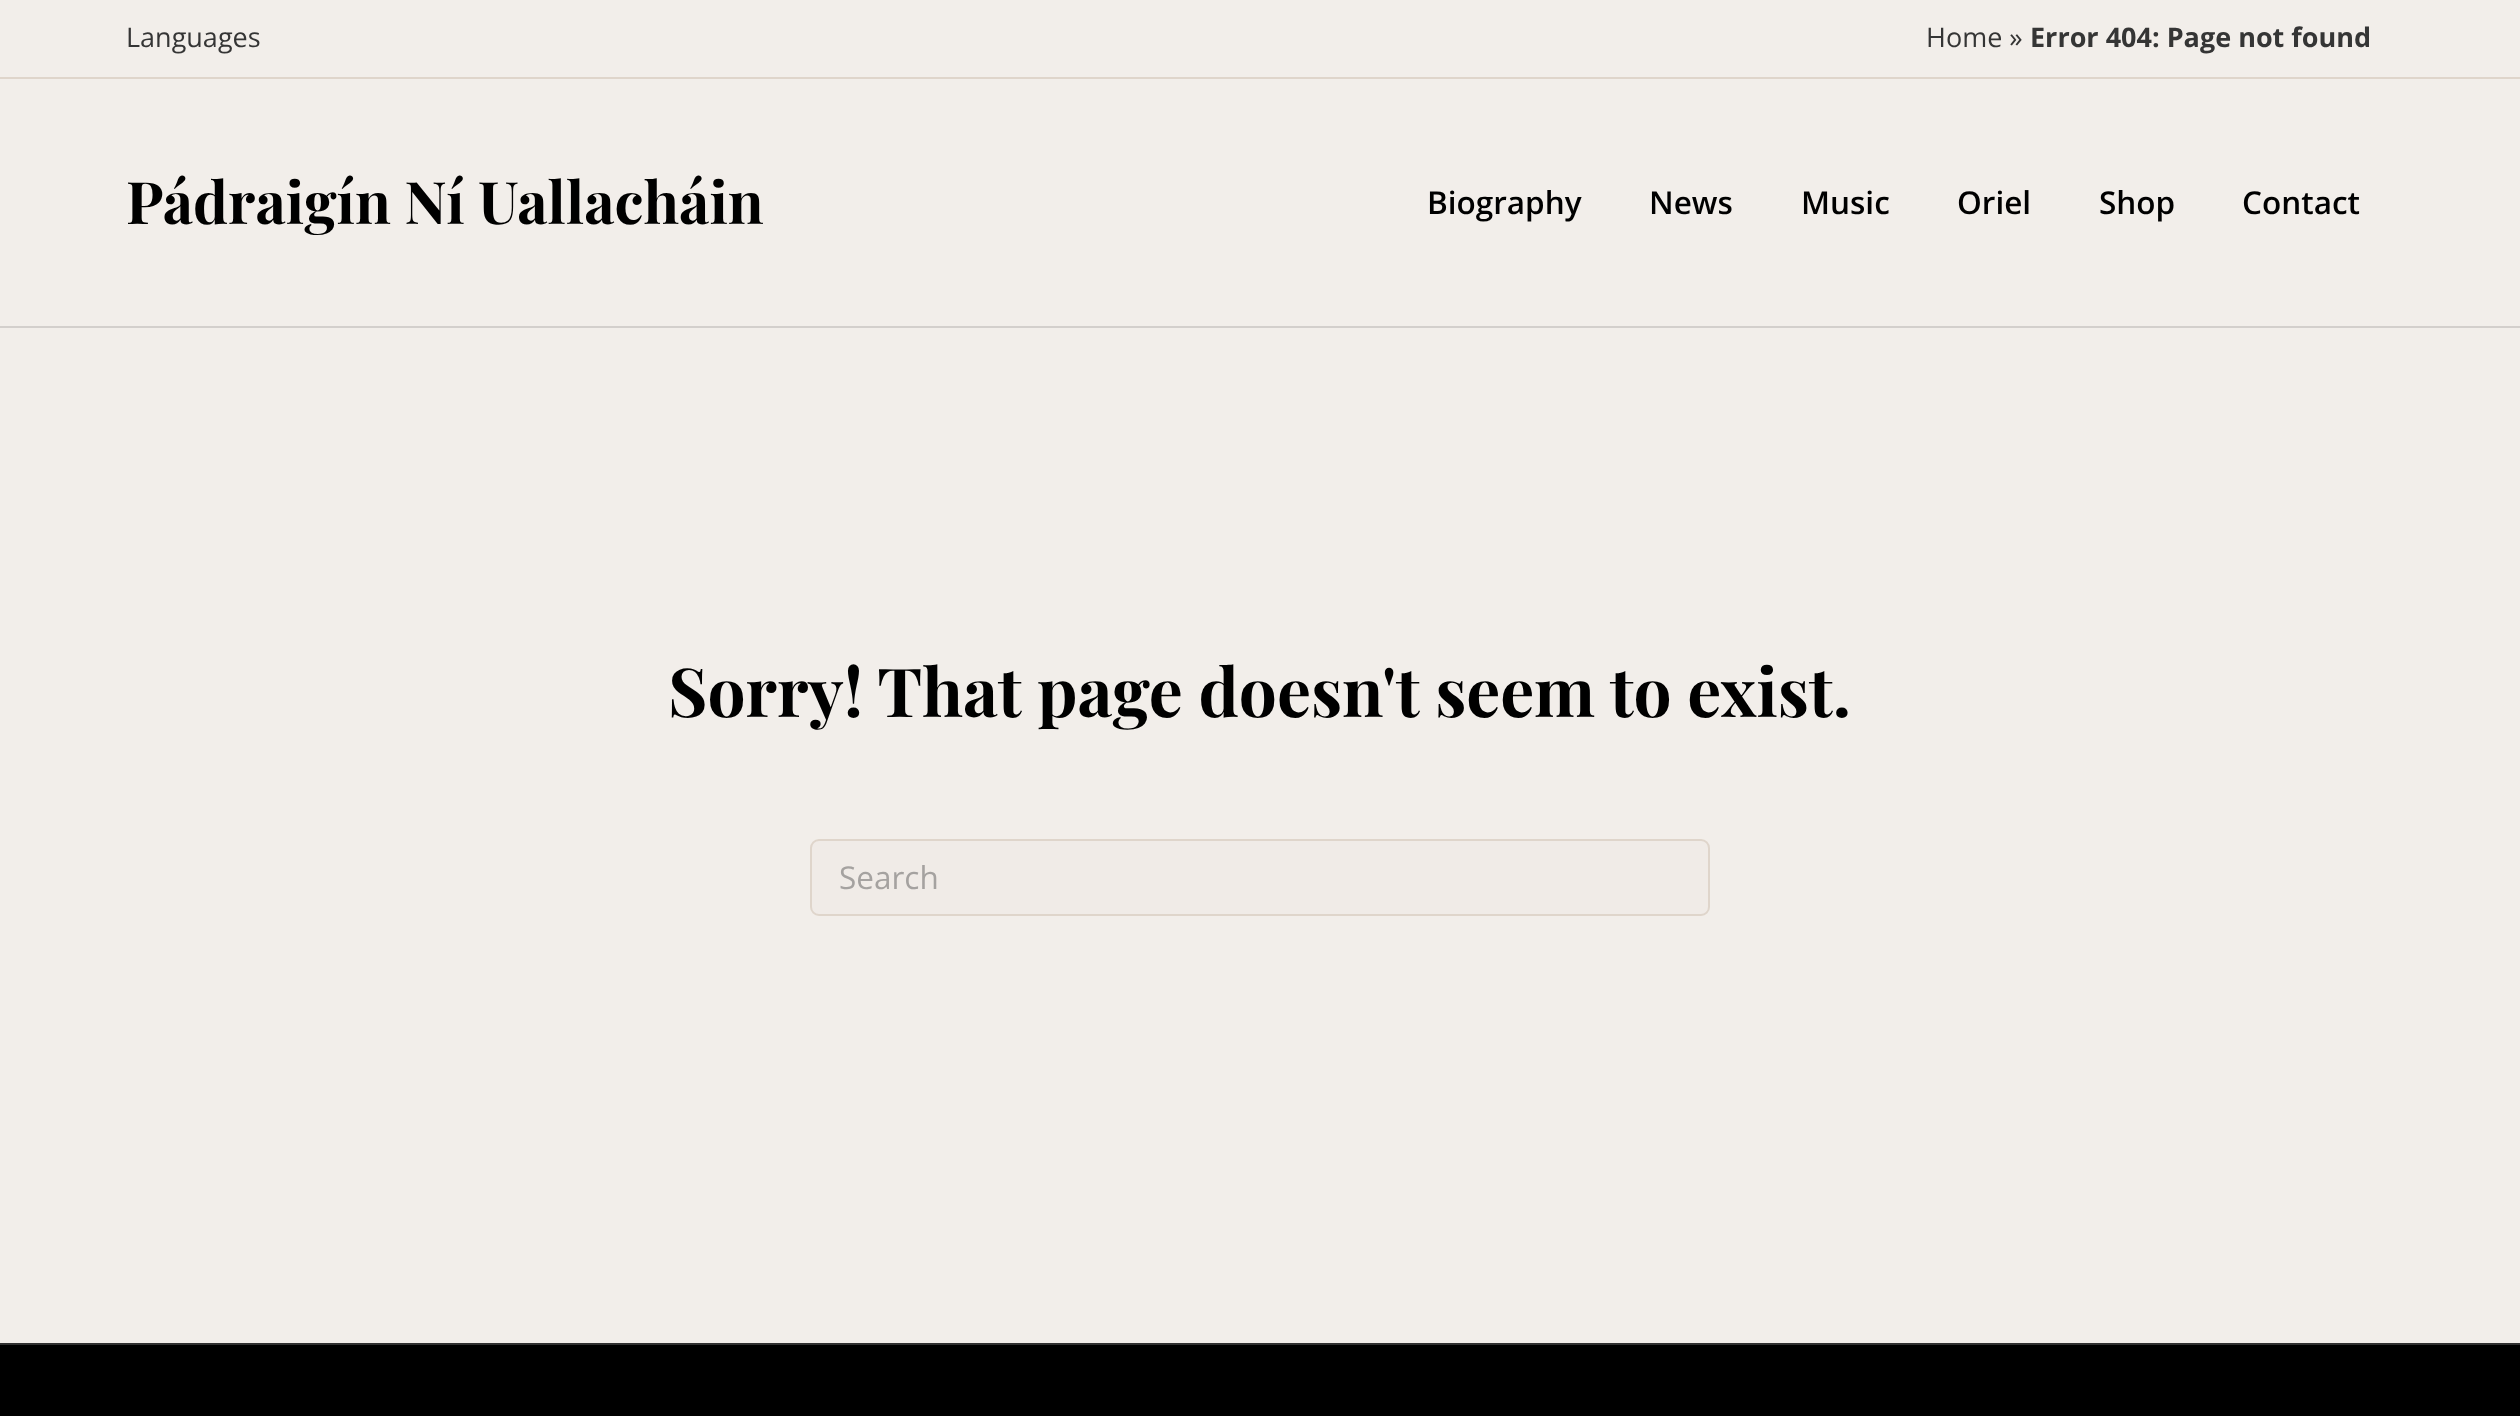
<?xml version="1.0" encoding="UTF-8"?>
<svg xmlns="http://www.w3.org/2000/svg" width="2520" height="1416">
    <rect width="100%" height="100%" fill="#F2EEEA"/>
    <rect x="0" y="77" width="2520" height="2" fill="#DFD5CB"/>
    <text x="126" y="47" font-family="Open Sans" font-size="27" fill="#353535">Languages</text>
    <text x="1926" y="47" font-family="Open Sans" font-size="27" fill="#353535">Home »</text>
    <text x="2030" y="47" font-family="Open Sans" font-size="27" font-weight="700" fill="#353535">Error 404: Page not found</text>
    <rect x="0" y="326" width="2520" height="2" fill="#D3CFCC"/>
    <text x="126" y="224" font-family="Playfair Display" font-size="58.5" font-weight="700" fill="#000000">Pádraigín Ní Uallacháin</text>
    <text x="1427" y="214" font-family="Open Sans" font-size="31.5" font-weight="600" fill="#000000">Biography</text>
    <text x="1649" y="214" font-family="Open Sans" font-size="31.5" font-weight="600" fill="#000000">News</text>
    <text x="1801" y="214" font-family="Open Sans" font-size="31.5" font-weight="600" fill="#000000">Music</text>
    <text x="1957" y="214" font-family="Open Sans" font-size="31.5" font-weight="600" fill="#000000">Oriel</text>
    <text x="2099" y="214" font-family="Open Sans" font-size="31.5" font-weight="600" fill="#000000">Shop</text>
    <text x="2242" y="214" font-family="Open Sans" font-size="31.5" font-weight="600" fill="#000000">Contact</text>
    <text x="668" y="717" font-family="Playfair Display" font-size="67.5" font-weight="700" fill="#000000">Sorry! That page doesn't seem to exist.</text>
    <rect x="811" y="840" width="898" height="75" rx="8" fill="#F0EBE7" stroke="#DFD5CB" stroke-width="2"/>
    <text x="839" y="889" font-family="Open Sans" font-size="31.5" fill="#A5A2A0">Search</text>
    <rect x="0" y="1345" width="2520" height="71" fill="#000000"/>
    <rect x="0" y="1343" width="2520" height="2" fill="#303030"/>
</svg>
